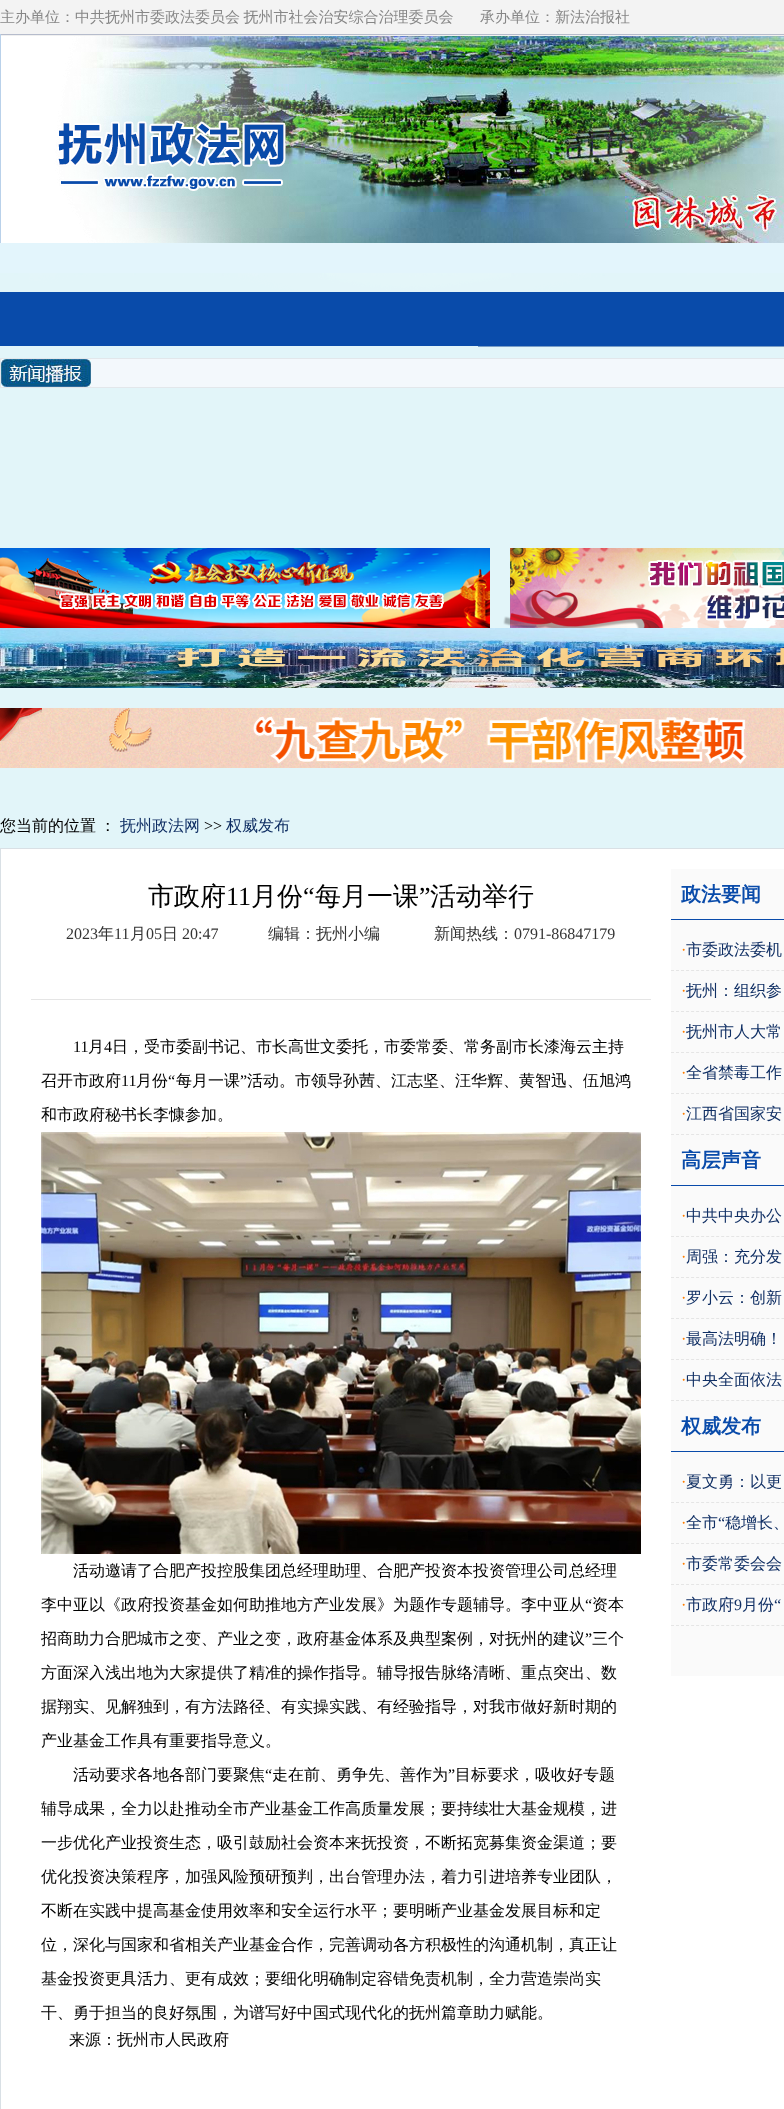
<?xml version="1.0" encoding="UTF-8"?>
<svg xmlns="http://www.w3.org/2000/svg" width="784" height="2109">
    <rect width="100%" height="100%" fill="#E2F5F9"/>
    <rect x="0" y="0" width="784" height="34" fill="#F3F3F3"/>
    <text x="0" y="22" word-spacing="-1" font-family="WenQuanYi Zen Hei" font-size="15" font-weight="500" fill="#868686">主办单位：中共抚州市委政法委员会 抚州市社会治安综合治理委员会</text>
    <text x="480" y="22" font-family="WenQuanYi Zen Hei" font-size="15" font-weight="500" fill="#868686">承办单位：新法治报社</text>
    <image x="0" y="243" width="784" height="104" href="img_01.png"/>
    <image x="0" y="34" width="784" height="209" href="img_02.png"/>
    <rect x="91" y="359" width="693" height="28" fill="#F3F8FC"/>
    <image x="1" y="359" width="90" height="28" href="img_03.png"/>
    <rect x="0.5" y="358.5" width="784" height="29" fill="none" stroke="#E2E7EB"/>
    <image x="0" y="548" width="784" height="80" href="img_04.png"/>
    <image x="0" y="628" width="784" height="60" href="img_05.png"/>
    <image x="0" y="708" width="784" height="60" href="img_06.png"/>
    <text x="0" y="831" word-spacing="-1" font-family="WenQuanYi Zen Hei" font-size="16" font-weight="500" fill="#000000">您当前的位置 ：</text>
    <text x="120" y="831" font-family="WenQuanYi Zen Hei" font-size="16" font-weight="500" fill="#102F64">抚州政法网</text>
    <text x="204" y="831" font-family="Liberation Serif" font-size="16" fill="#000000">&gt;&gt;</text>
    <text x="226" y="831" font-family="WenQuanYi Zen Hei" font-size="16" font-weight="500" fill="#102F64">权威发布</text>
    <rect x="0.5" y="848.5" width="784" height="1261" fill="#FFFFFF" stroke="#D9E0E5"/>
    <rect x="31" y="999" width="620" height="1" fill="#E5E5E5"/>
    <text x="148" y="905" font-family="WenQuanYi Zen Hei" font-size="26" font-weight="500" fill="#000000">市政府</text>
    <text x="226" y="905" font-family="Liberation Serif" font-size="26" fill="#000000">11</text>
    <text x="251" y="905" font-family="WenQuanYi Zen Hei" font-size="26" font-weight="500" fill="#000000">月份</text>
    <text x="303" y="905" font-family="Liberation Serif" font-size="26" fill="#000000">“</text>
    <text x="315" y="905" font-family="WenQuanYi Zen Hei" font-size="26" font-weight="500" fill="#000000">每月一课</text>
    <text x="419" y="905" font-family="Liberation Serif" font-size="26" fill="#000000">”</text>
    <text x="430" y="905" font-family="WenQuanYi Zen Hei" font-size="26" font-weight="500" fill="#000000">活动举行</text>
    <text x="66" y="939" font-family="Liberation Serif" font-size="16" fill="#333333">2023</text>
    <text x="98" y="939" font-family="WenQuanYi Zen Hei" font-size="16" font-weight="500" fill="#333333">年</text>
    <text x="114" y="939" font-family="Liberation Serif" font-size="16" fill="#333333">11</text>
    <text x="130" y="939" font-family="WenQuanYi Zen Hei" font-size="16" font-weight="500" fill="#333333">月</text>
    <text x="146" y="939" font-family="Liberation Serif" font-size="16" fill="#333333">05</text>
    <text x="162" y="939" font-family="WenQuanYi Zen Hei" font-size="16" font-weight="500" fill="#333333">日</text>
    <text x="182" y="939" font-family="Liberation Serif" font-size="16" fill="#333333">20:47</text>
    <text x="268" y="939" font-family="WenQuanYi Zen Hei" font-size="16" font-weight="500" fill="#333333">编辑：抚州小编</text>
    <text x="434" y="939" font-family="WenQuanYi Zen Hei" font-size="16" font-weight="500" fill="#333333">新闻热线：</text>
    <text x="514" y="939" font-family="Liberation Serif" font-size="16" fill="#333333">0791-86847179</text>
    <text x="73" y="1052" font-family="Liberation Serif" font-size="16" fill="#000000">11</text>
    <text x="88" y="1052" font-family="WenQuanYi Zen Hei" font-size="16" font-weight="500" fill="#000000">月</text>
    <text x="104" y="1052" font-family="Liberation Serif" font-size="16" fill="#000000">4</text>
    <text x="112" y="1052" font-family="WenQuanYi Zen Hei" font-size="16" font-weight="500" fill="#000000">日，受市委副书记、市长高世文委托，市委常委、常务副市长漆海云主持</text>
    <text x="41" y="1086" font-family="WenQuanYi Zen Hei" font-size="16" font-weight="500" fill="#000000">召开市政府</text>
    <text x="121" y="1086" font-family="Liberation Serif" font-size="16" fill="#000000">11</text>
    <text x="136" y="1086" font-family="WenQuanYi Zen Hei" font-size="16" font-weight="500" fill="#000000">月份</text>
    <text x="168" y="1086" font-family="Liberation Serif" font-size="16" fill="#000000">“</text>
    <text x="176" y="1086" font-family="WenQuanYi Zen Hei" font-size="16" font-weight="500" fill="#000000">每月一课</text>
    <text x="240" y="1086" font-family="Liberation Serif" font-size="16" fill="#000000">”</text>
    <text x="247" y="1086" font-family="WenQuanYi Zen Hei" font-size="16" font-weight="500" fill="#000000">活动。市领导孙茜、江志坚、汪华辉、黄智迅、伍旭鸿</text>
    <text x="41" y="1120" font-family="WenQuanYi Zen Hei" font-size="16" font-weight="500" fill="#000000">和市政府秘书长李慷参加。</text>
    <image x="41" y="1132" width="600" height="422" href="img_07.png"/>
    <text x="73" y="1576" font-family="WenQuanYi Zen Hei" font-size="16" font-weight="500" fill="#000000">活动邀请了合肥产投控股集团总经理助理、合肥产投资本投资管理公司总经理</text>
    <text x="41" y="1610" font-family="WenQuanYi Zen Hei" font-size="16" font-weight="500" fill="#000000">李中亚以《政府投资基金如何助推地方产业发展》为题作专题辅导。李中亚从</text>
    <text x="585" y="1610" font-family="Liberation Serif" font-size="16" fill="#000000">“</text>
    <text x="592" y="1610" font-family="WenQuanYi Zen Hei" font-size="16" font-weight="500" fill="#000000">资本</text>
    <text x="41" y="1644" font-family="WenQuanYi Zen Hei" font-size="16" font-weight="500" fill="#000000">招商助力合肥城市之变、产业之变，政府基金体系及典型案例，对抚州的建议</text>
    <text x="585" y="1644" font-family="Liberation Serif" font-size="16" fill="#000000">”</text>
    <text x="592" y="1644" font-family="WenQuanYi Zen Hei" font-size="16" font-weight="500" fill="#000000">三个</text>
    <text x="41" y="1678" font-family="WenQuanYi Zen Hei" font-size="16" font-weight="500" fill="#000000">方面深入浅出地为大家提供了精准的操作指导。辅导报告脉络清晰、重点突出、数</text>
    <text x="41" y="1712" font-family="WenQuanYi Zen Hei" font-size="16" font-weight="500" fill="#000000">据翔实、见解独到，有方法路径、有实操实践、有经验指导，对我市做好新时期的</text>
    <text x="41" y="1746" font-family="WenQuanYi Zen Hei" font-size="16" font-weight="500" fill="#000000">产业基金工作具有重要指导意义。</text>
    <text x="73" y="1780" font-family="WenQuanYi Zen Hei" font-size="16" font-weight="500" fill="#000000">活动要求各地各部门要聚焦</text>
    <text x="265" y="1780" font-family="Liberation Serif" font-size="16" fill="#000000">“</text>
    <text x="272" y="1780" font-family="WenQuanYi Zen Hei" font-size="16" font-weight="500" fill="#000000">走在前、勇争先、善作为</text>
    <text x="448" y="1780" font-family="Liberation Serif" font-size="16" fill="#000000">”</text>
    <text x="455" y="1780" font-family="WenQuanYi Zen Hei" font-size="16" font-weight="500" fill="#000000">目标要求，吸收好专题</text>
    <text x="41" y="1814" font-family="WenQuanYi Zen Hei" font-size="16" font-weight="500" fill="#000000">辅导成果，全力以赴推动全市产业基金工作高质量发展；要持续壮大基金规模，进</text>
    <text x="41" y="1848" font-family="WenQuanYi Zen Hei" font-size="16" font-weight="500" fill="#000000">一步优化产业投资生态，吸引鼓励社会资本来抚投资，不断拓宽募集资金渠道；要</text>
    <text x="41" y="1882" font-family="WenQuanYi Zen Hei" font-size="16" font-weight="500" fill="#000000">优化投资决策程序，加强风险预研预判，出台管理办法，着力引进培养专业团队，</text>
    <text x="41" y="1916" font-family="WenQuanYi Zen Hei" font-size="16" font-weight="500" fill="#000000">不断在实践中提高基金使用效率和安全运行水平；要明晰产业基金发展目标和定</text>
    <text x="41" y="1950" font-family="WenQuanYi Zen Hei" font-size="16" font-weight="500" fill="#000000">位，深化与国家和省相关产业基金合作，完善调动各方积极性的沟通机制，真正让</text>
    <text x="41" y="1984" font-family="WenQuanYi Zen Hei" font-size="16" font-weight="500" fill="#000000">基金投资更具活力、更有成效；要细化明确制定容错免责机制，全力营造崇尚实</text>
    <text x="41" y="2018" font-family="WenQuanYi Zen Hei" font-size="16" font-weight="500" fill="#000000">干、勇于担当的良好氛围，为谱写好中国式现代化的抚州篇章助力赋能。</text>
    <text x="69" y="2045" font-family="WenQuanYi Zen Hei" font-size="16" font-weight="500" fill="#000000">来源：抚州市人民政府</text>
    <rect x="671" y="869" width="113" height="807" fill="#FAFAFA"/>
    <rect x="671" y="919" width="113" height="1" fill="#094BAA"/>
    <text x="681" y="901" font-family="WenQuanYi Zen Hei" font-size="20" font-weight="700" fill="#094BAA">政法要闻</text>
    <path d="M 671 970.5 H 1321" fill="none" stroke="#E5E5E5" stroke-dasharray="3 2.02"/>
    <text x="681" y="955" font-family="Liberation Serif" font-size="16" fill="#FF7E00">·</text>
    <text x="686" y="955" font-family="WenQuanYi Zen Hei" font-size="16" font-weight="500" fill="#102F64">市委政法委机</text>
    <path d="M 671 1011.5 H 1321" fill="none" stroke="#E5E5E5" stroke-dasharray="3 2.02"/>
    <text x="681" y="996" font-family="Liberation Serif" font-size="16" fill="#FF7E00">·</text>
    <text x="686" y="996" font-family="WenQuanYi Zen Hei" font-size="16" font-weight="500" fill="#102F64">抚州：组织参</text>
    <path d="M 671 1052.5 H 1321" fill="none" stroke="#E5E5E5" stroke-dasharray="3 2.02"/>
    <text x="681" y="1037" font-family="Liberation Serif" font-size="16" fill="#FF7E00">·</text>
    <text x="686" y="1037" font-family="WenQuanYi Zen Hei" font-size="16" font-weight="500" fill="#102F64">抚州市人大常</text>
    <path d="M 671 1093.5 H 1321" fill="none" stroke="#E5E5E5" stroke-dasharray="3 2.02"/>
    <text x="681" y="1078" font-family="Liberation Serif" font-size="16" fill="#FF7E00">·</text>
    <text x="686" y="1078" font-family="WenQuanYi Zen Hei" font-size="16" font-weight="500" fill="#102F64">全省禁毒工作</text>
    <path d="M 671 1134.5 H 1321" fill="none" stroke="#E5E5E5" stroke-dasharray="3 2.02"/>
    <text x="681" y="1119" font-family="Liberation Serif" font-size="16" fill="#FF7E00">·</text>
    <text x="686" y="1119" font-family="WenQuanYi Zen Hei" font-size="16" font-weight="500" fill="#102F64">江西省国家安</text>
    <rect x="671" y="1185" width="113" height="1" fill="#094BAA"/>
    <text x="681" y="1167" font-family="WenQuanYi Zen Hei" font-size="20" font-weight="700" fill="#094BAA">高层声音</text>
    <path d="M 671 1236.5 H 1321" fill="none" stroke="#E5E5E5" stroke-dasharray="3 2.02"/>
    <text x="681" y="1221" font-family="Liberation Serif" font-size="16" fill="#FF7E00">·</text>
    <text x="686" y="1221" font-family="WenQuanYi Zen Hei" font-size="16" font-weight="500" fill="#102F64">中共中央办公</text>
    <path d="M 671 1277.5 H 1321" fill="none" stroke="#E5E5E5" stroke-dasharray="3 2.02"/>
    <text x="681" y="1262" font-family="Liberation Serif" font-size="16" fill="#FF7E00">·</text>
    <text x="686" y="1262" font-family="WenQuanYi Zen Hei" font-size="16" font-weight="500" fill="#102F64">周强：充分发</text>
    <path d="M 671 1318.5 H 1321" fill="none" stroke="#E5E5E5" stroke-dasharray="3 2.02"/>
    <text x="681" y="1303" font-family="Liberation Serif" font-size="16" fill="#FF7E00">·</text>
    <text x="686" y="1303" word-spacing="-1" font-family="WenQuanYi Zen Hei" font-size="16" font-weight="500" fill="#102F64">罗小云：创新</text>
    <path d="M 671 1359.5 H 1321" fill="none" stroke="#E5E5E5" stroke-dasharray="3 2.02"/>
    <text x="681" y="1344" font-family="Liberation Serif" font-size="16" fill="#FF7E00">·</text>
    <text x="686" y="1344" font-family="WenQuanYi Zen Hei" font-size="16" font-weight="500" fill="#102F64">最高法明确！</text>
    <path d="M 671 1400.5 H 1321" fill="none" stroke="#E5E5E5" stroke-dasharray="3 2.02"/>
    <text x="681" y="1385" font-family="Liberation Serif" font-size="16" fill="#FF7E00">·</text>
    <text x="686" y="1385" font-family="WenQuanYi Zen Hei" font-size="16" font-weight="500" fill="#102F64">中央全面依法</text>
    <rect x="671" y="1451" width="113" height="1" fill="#094BAA"/>
    <text x="681" y="1433" font-family="WenQuanYi Zen Hei" font-size="20" font-weight="700" fill="#094BAA">权威发布</text>
    <path d="M 671 1502.5 H 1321" fill="none" stroke="#E5E5E5" stroke-dasharray="3 2.02"/>
    <text x="681" y="1487" font-family="Liberation Serif" font-size="16" fill="#FF7E00">·</text>
    <text x="686" y="1487" font-family="WenQuanYi Zen Hei" font-size="16" font-weight="500" fill="#102F64">夏文勇：以更</text>
    <path d="M 671 1543.5 H 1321" fill="none" stroke="#E5E5E5" stroke-dasharray="3 2.02"/>
    <text x="686" y="1528" font-family="WenQuanYi Zen Hei" font-size="16" font-weight="500" fill="#102F64">全市</text>
    <text x="718" y="1528" font-family="Liberation Serif" font-size="16" fill="#102F64">“</text>
    <text x="725" y="1528" font-family="WenQuanYi Zen Hei" font-size="16" font-weight="500" fill="#102F64">稳增长、</text>
    <text x="681" y="1528" font-family="Liberation Serif" font-size="16" fill="#FF7E00">·</text>
    <path d="M 671 1584.5 H 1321" fill="none" stroke="#E5E5E5" stroke-dasharray="3 2.02"/>
    <text x="681" y="1569" font-family="Liberation Serif" font-size="16" fill="#FF7E00">·</text>
    <text x="686" y="1569" font-family="WenQuanYi Zen Hei" font-size="16" font-weight="500" fill="#102F64">市委常委会会</text>
    <path d="M 671 1625.5 H 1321" fill="none" stroke="#E5E5E5" stroke-dasharray="3 2.02"/>
    <text x="686" y="1610" font-family="WenQuanYi Zen Hei" font-size="16" font-weight="500" fill="#102F64">市政府</text>
    <text x="734" y="1610" font-family="Liberation Serif" font-size="16" fill="#102F64">9</text>
    <text x="742" y="1610" font-family="WenQuanYi Zen Hei" font-size="16" font-weight="500" fill="#102F64">月份</text>
    <text x="774" y="1610" font-family="Liberation Serif" font-size="16" fill="#102F64">“</text>
    <text x="681" y="1610" font-family="Liberation Serif" font-size="16" fill="#FF7E00">·</text>
</svg>
